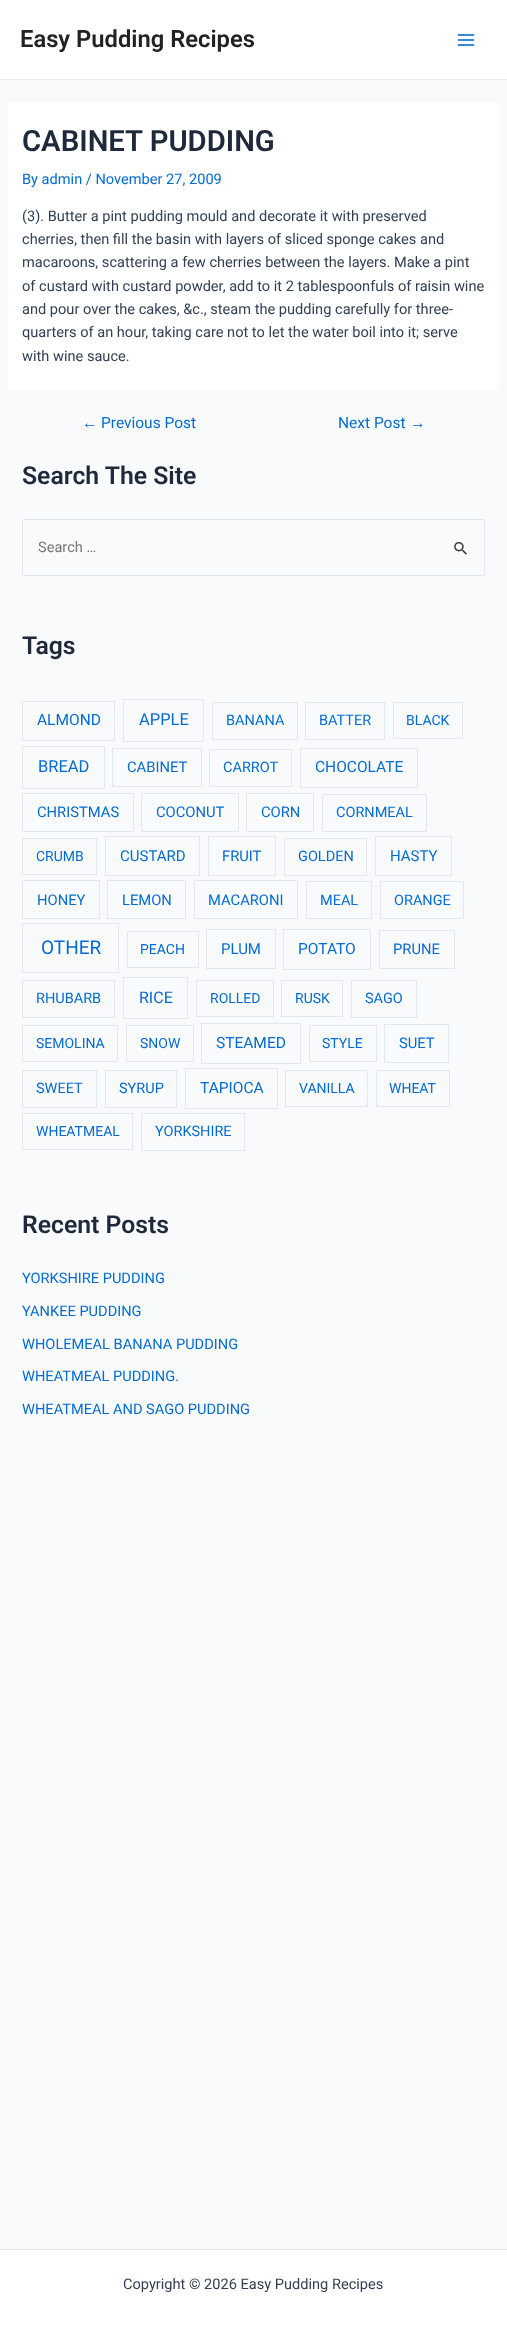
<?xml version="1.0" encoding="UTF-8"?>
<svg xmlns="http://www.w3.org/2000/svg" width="507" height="2329">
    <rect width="100%" height="100%" fill="#F9FAFB"/>
    <rect x="0" y="0" width="507" height="79" fill="#FFFFFF"/>
    <rect x="0" y="79" width="507" height="1" fill="#EAEAEA"/>
    <text x="20" y="47" font-family="Roboto" font-size="23.75" font-weight="600" fill="#222222">Easy Pudding Recipes</text>
    <image x="457" y="34" width="18" height="12" href="img_01.png"/>
    <rect x="8" y="102" width="491" height="288" fill="#FFFFFF"/>
    <text x="22" y="151" font-family="Roboto" font-size="29.25" font-weight="600" fill="#1E293B">CABINET PUDDING</text>
    <text x="22" y="184" font-family="Roboto" font-size="14.6" fill="#046BD2">By admin / November 27, 2009</text>
    <text font-family="Roboto" font-size="14.6" fill="#334155">
        <tspan x="22" y="221">(3). Butter a pint pudding mould and decorate it with preserved</tspan>
        <tspan x="22" y="244">cherries, then fill the basin with layers of sliced sponge cakes and</tspan>
        <tspan x="22" y="267">macaroons, scattering a few cherries between the layers. Make a pint</tspan>
        <tspan x="22" y="291">of custard with custard powder, add to it 2 tablespoonfuls of raisin wine</tspan>
        <tspan x="22" y="314">and pour over the cakes, &amp;c., steam the pudding carefully for three-</tspan>
        <tspan x="22" y="337">quarters of an hour, taking care not to let the water boil into it; serve</tspan>
        <tspan x="22" y="361">with wine sauce.</tspan>
    </text>
    <text x="82" y="428" font-family="Liberation Sans" font-size="15.5" fill="#046BD2">←</text>
    <text x="101" y="428" font-family="Roboto" font-size="15.5" fill="#046BD2">Previous Post</text>
    <text x="338" y="428" font-family="Roboto" font-size="15.5" fill="#046BD2">Next Post</text>
    <text x="410" y="428" font-family="Liberation Sans" font-size="15.5" fill="#046BD2">→</text>
    <text x="22" y="484" font-family="Roboto" font-size="24.75" font-weight="600" fill="#1E293B">Search The Site</text>
    <rect x="22.5" y="519.5" width="462" height="56" rx="1.5" fill="none" stroke="#E2E8F0"/>
    <text x="38" y="552" font-family="Roboto" font-size="14.6" fill="#757575">Search …</text>
    <image x="454" y="541" width="13" height="14" href="img_02.png"/>
    <text x="22" y="654" font-family="Roboto" font-size="24.75" font-weight="600" fill="#1E293B">Tags</text>
    <rect x="22.5" y="701.5" width="92" height="39" fill="none" stroke="#E2E8F0"/>
    <text x="37" y="725" font-family="Roboto" font-size="15.5" fill="#046BD2">ALMOND</text>
    <rect x="123.5" y="699.5" width="80" height="42" fill="none" stroke="#E2E8F0"/>
    <text x="139" y="725" font-family="Roboto" font-size="16.5" fill="#046BD2">APPLE</text>
    <rect x="212.5" y="702.5" width="85" height="37" fill="none" stroke="#E2E8F0"/>
    <text x="226" y="725" font-family="Roboto" font-size="14.5" fill="#046BD2">BANANA</text>
    <rect x="305.5" y="702.5" width="79" height="37" fill="none" stroke="#E2E8F0"/>
    <text x="319" y="725" font-family="Roboto" font-size="14.5" fill="#046BD2">BATTER</text>
    <rect x="393.5" y="702.5" width="69" height="36" fill="none" stroke="#E2E8F0"/>
    <text x="406" y="725" font-family="Roboto" font-size="14" fill="#046BD2">BLACK</text>
    <rect x="22.5" y="746.5" width="82" height="42" fill="none" stroke="#E2E8F0"/>
    <text x="38" y="772" font-family="Roboto" font-size="16.5" fill="#046BD2">BREAD</text>
    <rect x="112.5" y="748.5" width="89" height="38" fill="none" stroke="#E2E8F0"/>
    <text x="127" y="772" font-family="Roboto" font-size="14.75" fill="#046BD2">CABINET</text>
    <rect x="209.5" y="749.5" width="82" height="37" fill="none" stroke="#E2E8F0"/>
    <text x="223" y="772" font-family="Roboto" font-size="14.5" fill="#046BD2">CARROT</text>
    <rect x="300.5" y="748.5" width="117" height="39" fill="none" stroke="#E2E8F0"/>
    <text x="315" y="772" font-family="Roboto" font-size="15.5" fill="#046BD2">CHOCOLATE</text>
    <rect x="22.5" y="793.5" width="111" height="38" fill="none" stroke="#E2E8F0"/>
    <text x="37" y="817" font-family="Roboto" font-size="14.75" fill="#046BD2">CHRISTMAS</text>
    <rect x="141.5" y="793.5" width="97" height="38" fill="none" stroke="#E2E8F0"/>
    <text x="156" y="817" font-family="Roboto" font-size="14.75" fill="#046BD2">COCONUT</text>
    <rect x="246.5" y="793.5" width="67" height="38" fill="none" stroke="#E2E8F0"/>
    <text x="261" y="817" font-family="Roboto" font-size="14.75" fill="#046BD2">CORN</text>
    <rect x="322.5" y="794.5" width="104" height="37" fill="none" stroke="#E2E8F0"/>
    <text x="336" y="817" font-family="Roboto" font-size="14.5" fill="#046BD2">CORNMEAL</text>
    <rect x="22.5" y="838.5" width="74" height="36" fill="none" stroke="#E2E8F0"/>
    <text x="36" y="861" font-family="Roboto" font-size="14" fill="#046BD2">CRUMB</text>
    <rect x="105.5" y="836.5" width="94" height="39" fill="none" stroke="#E2E8F0"/>
    <text x="120" y="861" font-family="Roboto" font-size="15" fill="#046BD2">CUSTARD</text>
    <rect x="208.5" y="836.5" width="67" height="39" fill="none" stroke="#E2E8F0"/>
    <text x="222" y="861" font-family="Roboto" font-size="14.75" fill="#046BD2">FRUIT</text>
    <rect x="284.5" y="838.5" width="82" height="37" fill="none" stroke="#E2E8F0"/>
    <text x="298" y="861" font-family="Roboto" font-size="14.5" fill="#046BD2">GOLDEN</text>
    <rect x="375.5" y="836.5" width="76" height="39" fill="none" stroke="#E2E8F0"/>
    <text x="390" y="861" font-family="Roboto" font-size="15" fill="#046BD2">HASTY</text>
    <rect x="22.5" y="880.5" width="77" height="38" fill="none" stroke="#E2E8F0"/>
    <text x="37" y="905" font-family="Roboto" font-size="14.75" fill="#046BD2">HONEY</text>
    <rect x="107.5" y="880.5" width="78" height="38" fill="none" stroke="#E2E8F0"/>
    <text x="122" y="905" font-family="Roboto" font-size="14.75" fill="#046BD2">LEMON</text>
    <rect x="194.5" y="880.5" width="103" height="38" fill="none" stroke="#E2E8F0"/>
    <text x="208" y="905" font-family="Roboto" font-size="14.75" fill="#046BD2">MACARONI</text>
    <rect x="306.5" y="881.5" width="65" height="37" fill="none" stroke="#E2E8F0"/>
    <text x="320" y="905" font-family="Roboto" font-size="14.5" fill="#046BD2">MEAL</text>
    <rect x="380.5" y="881.5" width="83" height="37" fill="none" stroke="#E2E8F0"/>
    <text x="394" y="905" font-family="Roboto" font-size="14.5" fill="#046BD2">ORANGE</text>
    <rect x="22.5" y="923.5" width="96" height="49" fill="none" stroke="#E2E8F0"/>
    <text x="41" y="954" font-family="Roboto" font-size="19" fill="#046BD2">OTHER</text>
    <rect x="127.5" y="931.5" width="71" height="36" fill="none" stroke="#E2E8F0"/>
    <text x="140" y="954" font-family="Roboto" font-size="14" fill="#046BD2">PEACH</text>
    <rect x="206.5" y="929.5" width="69" height="39" fill="none" stroke="#E2E8F0"/>
    <text x="221" y="954" font-family="Roboto" font-size="15" fill="#046BD2">PLUM</text>
    <rect x="283.5" y="929.5" width="87" height="40" fill="none" stroke="#E2E8F0"/>
    <text x="298" y="954" font-family="Roboto" font-size="15.5" fill="#046BD2">POTATO</text>
    <rect x="379.5" y="930.5" width="75" height="38" fill="none" stroke="#E2E8F0"/>
    <text x="393" y="954" font-family="Roboto" font-size="14.75" fill="#046BD2">PRUNE</text>
    <rect x="22.5" y="980.5" width="92" height="37" fill="none" stroke="#E2E8F0"/>
    <text x="36" y="1003" font-family="Roboto" font-size="14.5" fill="#046BD2">RHUBARB</text>
    <rect x="123.5" y="977.5" width="64" height="41" fill="none" stroke="#E2E8F0"/>
    <text x="139" y="1003" font-family="Roboto" font-size="16" fill="#046BD2">RICE</text>
    <rect x="196.5" y="980.5" width="77" height="36" fill="none" stroke="#E2E8F0"/>
    <text x="210" y="1003" font-family="Roboto" font-size="14" fill="#046BD2">ROLLED</text>
    <rect x="281.5" y="980.5" width="61" height="36" fill="none" stroke="#E2E8F0"/>
    <text x="295" y="1003" font-family="Roboto" font-size="14" fill="#046BD2">RUSK</text>
    <rect x="351.5" y="980.5" width="65" height="37" fill="none" stroke="#E2E8F0"/>
    <text x="365" y="1003" font-family="Roboto" font-size="14.5" fill="#046BD2">SAGO</text>
    <rect x="22.5" y="1025.5" width="95" height="36" fill="none" stroke="#E2E8F0"/>
    <text x="36" y="1048" font-family="Roboto" font-size="14" fill="#046BD2">SEMOLINA</text>
    <rect x="126.5" y="1025.5" width="67" height="36" fill="none" stroke="#E2E8F0"/>
    <text x="140" y="1048" font-family="Roboto" font-size="14" fill="#046BD2">SNOW</text>
    <rect x="201.5" y="1023.5" width="99" height="40" fill="none" stroke="#E2E8F0"/>
    <text x="216" y="1048" font-family="Roboto" font-size="15.5" fill="#046BD2">STEAMED</text>
    <rect x="309.5" y="1025.5" width="67" height="36" fill="none" stroke="#E2E8F0"/>
    <text x="322" y="1048" font-family="Roboto" font-size="14" fill="#046BD2">STYLE</text>
    <rect x="384.5" y="1024.5" width="64" height="38" fill="none" stroke="#E2E8F0"/>
    <text x="399" y="1048" font-family="Roboto" font-size="14.75" fill="#046BD2">SUET</text>
    <rect x="22.5" y="1070.5" width="74" height="37" fill="none" stroke="#E2E8F0"/>
    <text x="36" y="1093" font-family="Roboto" font-size="14.5" fill="#046BD2">SWEET</text>
    <rect x="105.5" y="1070.5" width="71" height="37" fill="none" stroke="#E2E8F0"/>
    <text x="119" y="1093" font-family="Roboto" font-size="14.5" fill="#046BD2">SYRUP</text>
    <rect x="185.5" y="1068.5" width="92" height="40" fill="none" stroke="#E2E8F0"/>
    <text x="200" y="1093" font-family="Roboto" font-size="15.5" fill="#046BD2">TAPIOCA</text>
    <rect x="285.5" y="1070.5" width="82" height="36" fill="none" stroke="#E2E8F0"/>
    <text x="299" y="1093" font-family="Roboto" font-size="14" fill="#046BD2">VANILLA</text>
    <rect x="376.5" y="1070.5" width="73" height="36" fill="none" stroke="#E2E8F0"/>
    <text x="389" y="1093" font-family="Roboto" font-size="14" fill="#046BD2">WHEAT</text>
    <rect x="22.5" y="1113.5" width="110" height="36" fill="none" stroke="#E2E8F0"/>
    <text x="36" y="1136" font-family="Roboto" font-size="14" fill="#046BD2">WHEATMEAL</text>
    <rect x="141.5" y="1113.5" width="103" height="37" fill="none" stroke="#E2E8F0"/>
    <text x="155" y="1136" font-family="Roboto" font-size="14.5" fill="#046BD2">YORKSHIRE</text>
    <text x="22" y="1233" font-family="Roboto" font-size="24.75" font-weight="600" fill="#1E293B">Recent Posts</text>
    <text x="22" y="1283" font-family="Roboto" font-size="14.6" fill="#046BD2">YORKSHIRE PUDDING</text>
    <text x="22" y="1316" font-family="Roboto" font-size="14.6" fill="#046BD2">YANKEE PUDDING</text>
    <text x="22" y="1349" font-family="Roboto" font-size="14.6" fill="#046BD2">WHOLEMEAL BANANA PUDDING</text>
    <text x="22" y="1381" font-family="Roboto" font-size="14.6" fill="#046BD2">WHEATMEAL PUDDING.</text>
    <text x="22" y="1414" font-family="Roboto" font-size="14.6" fill="#046BD2">WHEATMEAL AND SAGO PUDDING</text>
    <rect x="0" y="2250" width="507" height="79" fill="#FFFFFF"/>
    <rect x="0" y="2249" width="507" height="1" fill="#E2E8F0"/>
    <text x="123" y="2289" font-family="Roboto" font-size="14.6" fill="#334155">Copyright © 2026 Easy Pudding Recipes</text>
</svg>
